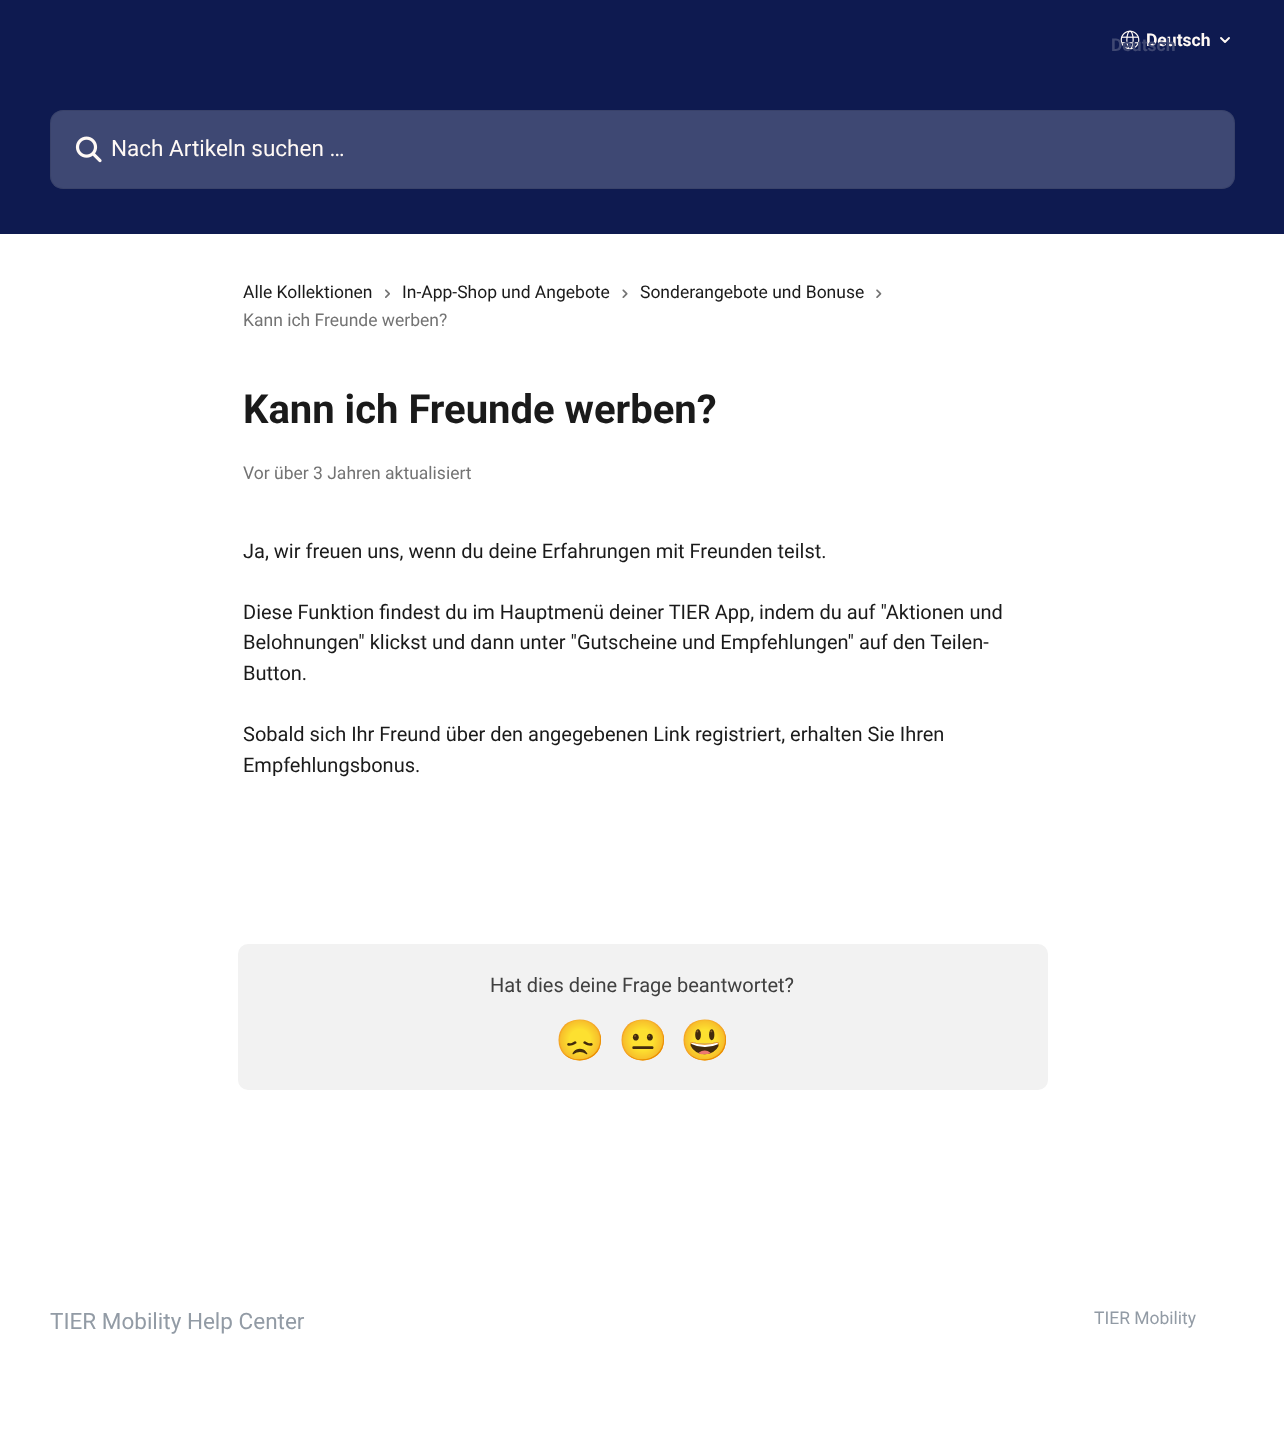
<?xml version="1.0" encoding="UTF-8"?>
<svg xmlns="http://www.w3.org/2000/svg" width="1284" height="1450">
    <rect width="100%" height="100%" fill="#FFFFFF"/>
    <rect x="0" y="0" width="1284" height="234" fill="#0E1A50"/>
    <image x="1120" y="30" width="20" height="20" href="img_01.png"/>
    <text x="1146" y="46" font-family="Roboto" font-size="17.5" font-weight="700" fill="#FFF9F5">Deutsch</text>
    <text x="1111" y="51" font-family="Roboto" font-size="17.5" font-weight="700" fill="#3F4872">Deutsch</text>
    <path d="M 1221 38 L 1225 42 L 1229 38" fill="none" stroke="#FFF9F5" stroke-width="1.9" stroke-linecap="round" stroke-linejoin="round"/>
    <rect x="50" y="110" width="1185" height="79" rx="13" fill="#3E4873"/>
    <rect x="50.5" y="110.5" width="1184" height="78" rx="12.5" fill="none" stroke="#000000" stroke-opacity="0.08"/>
    <image x="75" y="136" width="27" height="27" href="img_02.png"/>
    <text x="111" y="156" font-family="Roboto" font-size="22.5" fill="#FFF9F5">Nach Artikeln suchen …</text>
    <text x="243" y="298" font-family="Roboto" font-size="17.5" fill="#1A1A1A">Alle Kollektionen</text>
    <image x="385" y="289" width="5" height="9" href="img_03.png"/>
    <text x="402" y="298" font-family="Roboto" font-size="17.5" fill="#1A1A1A">In-App-Shop und Angebote</text>
    <image x="622" y="289" width="6" height="9" href="img_04.png"/>
    <text x="640" y="298" font-family="Roboto" font-size="17.5" fill="#1A1A1A">Sonderangebote und Bonuse</text>
    <image x="876" y="289" width="6" height="9" href="img_05.png"/>
    <text x="243" y="326" font-family="Roboto" font-size="17.5" fill="#737373">Kann ich Freunde werben?</text>
    <text x="243" y="423" font-family="Roboto" font-size="40" font-weight="700" fill="#1A1A1A">Kann ich Freunde werben?</text>
    <text x="243" y="479" font-family="Roboto" font-size="17.5" fill="#737373">Vor über 3 Jahren aktualisiert</text>
    <text x="243" y="558" font-family="Roboto" font-size="20" fill="#1A1A1A">Ja, wir freuen uns, wenn du deine Erfahrungen mit Freunden teilst.</text>
    <text font-family="Roboto" font-size="20" fill="#1A1A1A">
        <tspan x="243" y="619">Diese Funktion findest du im Hauptmenü deiner TIER App, indem du auf "Aktionen und</tspan>
        <tspan x="243" y="649">Belohnungen" klickst und dann unter "Gutscheine und Empfehlungen" auf den Teilen-</tspan>
        <tspan x="243" y="680">Button.</tspan>
    </text>
    <text font-family="Roboto" font-size="20" fill="#1A1A1A">
        <tspan x="243" y="741">Sobald sich Ihr Freund über den angegebenen Link registriert, erhalten Sie Ihren</tspan>
        <tspan x="243" y="772">Empfehlungsbonus.</tspan>
    </text>
    <rect x="238" y="944" width="810" height="146" rx="10" fill="#F2F2F2"/>
    <text x="490" y="992" font-family="Roboto" font-size="20" fill="#404040">Hat dies deine Frage beantwortet?</text>
    <text x="555" y="1054" font-family="Noto Color Emoji" font-size="40" fill="#404040">😞</text>
    <text x="618" y="1054" font-family="Noto Color Emoji" font-size="40" fill="#404040">😐</text>
    <text x="680" y="1054" font-family="Noto Color Emoji" font-size="40" fill="#404040">😃</text>
    <text x="50" y="1329" font-family="Roboto" font-size="22.5" fill="#929BA5">TIER Mobility Help Center</text>
    <text x="1094" y="1324" font-family="Roboto" font-size="17.5" fill="#929BA5">TIER Mobility</text>
</svg>
